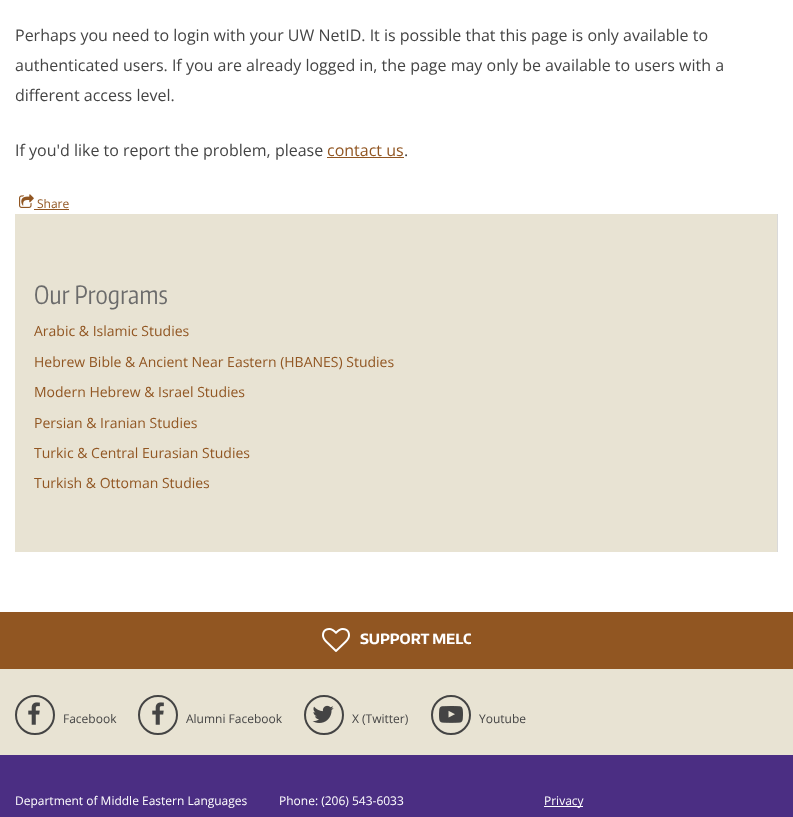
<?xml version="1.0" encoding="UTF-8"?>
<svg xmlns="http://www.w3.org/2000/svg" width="793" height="817">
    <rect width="100%" height="100%" fill="#FFFFFF"/>
    <text font-family="Open Sans" font-size="16" fill="#444444">
        <tspan x="15" y="41">Perhaps you need to login with your UW NetID. It is possible that this page is only available to</tspan>
        <tspan x="15" y="71">authenticated users. If you are already logged in, the page may only be available to users with a</tspan>
        <tspan x="15" y="101">different access level.</tspan>
    </text>
    <text x="15" y="156" font-family="Open Sans" font-size="16" fill="#444444">If you'd like to report the problem, please</text>
    <text x="327" y="156" font-family="Open Sans" font-size="16" fill="#915622">contact us</text>
    <rect x="327" y="157" width="77" height="1" fill="#915622"/>
    <text x="404" y="156" font-family="Open Sans" font-size="16" fill="#444444">.</text>
    <image x="19" y="194" width="15" height="14" href="img_01.png"/>
    <text x="37" y="208" font-family="Open Sans" font-size="12" fill="#915622">Share</text>
    <rect x="34" y="209" width="35" height="1" fill="#915622"/>
    <rect x="15" y="214" width="762" height="338" fill="#E8E3D3"/>
    <rect x="777" y="214" width="1" height="338" fill="#D9D9D9"/>
    <text x="34" y="304" font-family="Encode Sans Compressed" font-size="25" letter-spacing="0.25" fill="#6B6B6B">Our Programs</text>
    <text x="34" y="336" font-family="Open Sans" font-size="14" fill="#915622">Arabic &amp; Islamic Studies</text>
    <text x="34" y="367" font-family="Open Sans" font-size="14" fill="#915622">Hebrew Bible &amp; Ancient Near Eastern (HBANES) Studies</text>
    <text x="34" y="397" font-family="Open Sans" font-size="14" fill="#915622">Modern Hebrew &amp; Israel Studies</text>
    <text x="34" y="428" font-family="Open Sans" font-size="14" fill="#915622">Persian &amp; Iranian Studies</text>
    <text x="34" y="458" font-family="Open Sans" font-size="14" fill="#915622">Turkic &amp; Central Eurasian Studies</text>
    <text x="34" y="488" font-family="Open Sans" font-size="14" fill="#915622">Turkish &amp; Ottoman Studies</text>
    <rect x="0" y="669" width="793" height="86" fill="#E8E3D3"/>
    <rect x="0" y="612" width="793" height="57" fill="#915622"/>
    <image x="322" y="628" width="28" height="24" href="img_02.png"/>
    <text x="360" y="644" font-family="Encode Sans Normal" font-size="14" font-weight="700" fill="#FFFFFF">SUPPORT MELC</text>
    <circle cx="35" cy="715" r="19" fill="none" stroke="#444444" stroke-width="2"/>
    <image x="28" y="702" width="12" height="23" href="img_03.png"/>
    <text x="63" y="723" font-family="Open Sans" font-size="12" fill="#444444">Facebook</text>
    <circle cx="158" cy="715" r="19" fill="none" stroke="#444444" stroke-width="2"/>
    <image x="152" y="702" width="12" height="23" href="img_03.png"/>
    <text x="186" y="723" font-family="Open Sans" font-size="12" fill="#444444">Alumni Facebook</text>
    <circle cx="324" cy="715" r="19" fill="none" stroke="#444444" stroke-width="2"/>
    <image x="312" y="705" width="22" height="18" href="img_04.png"/>
    <text x="352" y="723" font-family="Open Sans" font-size="12" fill="#444444">X (Twitter)</text>
    <circle cx="451" cy="715" r="19" fill="none" stroke="#444444" stroke-width="2"/>
    <image x="439" y="706" width="24" height="17" href="img_05.png"/>
    <text x="479" y="723" font-family="Open Sans" font-size="12" fill="#444444">Youtube</text>
    <rect x="0" y="755" width="793" height="62" fill="#4B2E83"/>
    <text x="15" y="805" font-family="Open Sans" font-size="12" fill="#FFFFFF">Department of Middle Eastern Languages</text>
    <text x="279" y="805" font-family="Open Sans" font-size="12" fill="#FFFFFF">Phone: (206) 543-6033</text>
    <rect x="544" y="806" width="39" height="1" fill="#FFFFFF"/>
    <text x="544" y="805" font-family="Open Sans" font-size="12" fill="#FFFFFF">Privacy</text>
</svg>
